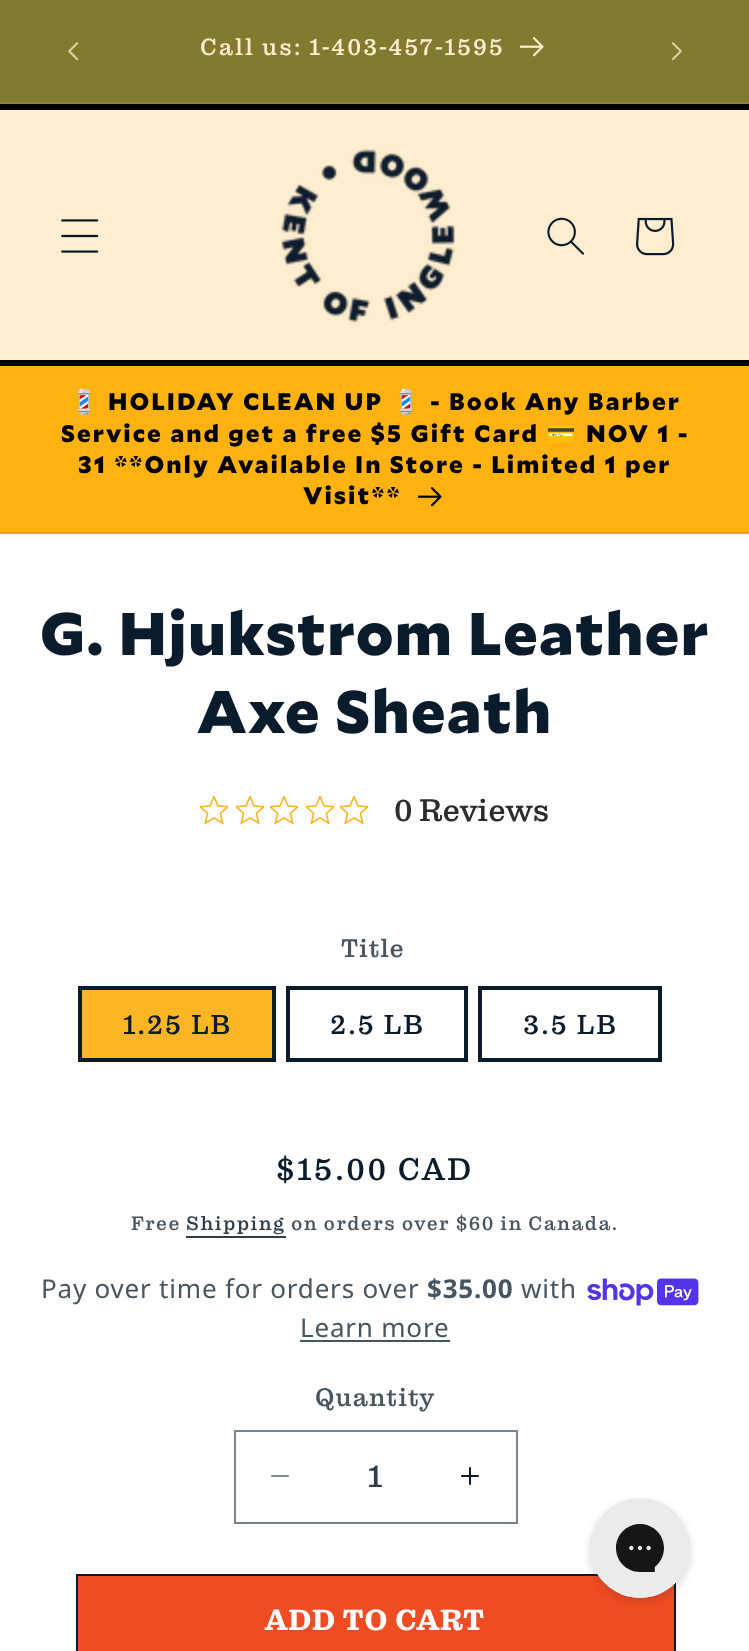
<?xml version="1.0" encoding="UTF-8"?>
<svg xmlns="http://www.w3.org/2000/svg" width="749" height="1651">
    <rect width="100%" height="100%" fill="#FFFFFF"/>
    <rect x="0" y="0" width="749" height="102" fill="#817B30"/>
    <rect x="0" y="102" width="749" height="2" fill="#8B843D"/>
    <image x="68" y="42" width="11" height="19" href="img_01.png"/>
    <text x="200" y="55" font-family="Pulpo" font-size="24" letter-spacing="2" fill="#FFEDD0">Call us: 1-403-457-1595</text>
    <image x="520" y="37" width="24" height="20" href="img_02.png"/>
    <image x="671" y="42" width="11" height="19" href="img_03.png"/>
    <rect x="0" y="110" width="749" height="250" fill="#FFEDD0"/>
    <rect x="0" y="104" width="749" height="6" fill="#000000"/>
    <rect x="0" y="360" width="749" height="6" fill="#000000"/>
    <image x="61" y="219" width="38" height="34" href="img_04.png"/>
    <image x="281" y="149" width="174" height="174" href="img_05.png"/>
    <image x="547" y="217" width="37" height="38" href="img_06.png"/>
    <image x="636" y="217" width="39" height="39" href="img_07.png"/>
    <rect x="0" y="366" width="749" height="166" fill="#FFB210"/>
    <rect x="0" y="532" width="749" height="2" fill="#EBA40F"/>
    <text x="69" y="410" font-family="Noto Color Emoji" font-size="24" letter-spacing="2" fill="#000000">💈</text>
    <text x="108" y="410" font-family="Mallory" font-size="24" font-weight="900" letter-spacing="2" fill="#000000">HOLIDAY CLEAN UP</text>
    <text x="391" y="410" font-family="Noto Color Emoji" font-size="24" letter-spacing="2" fill="#000000">💈</text>
    <text x="430" y="410" font-family="Mallory" font-size="24" font-weight="900" letter-spacing="2" fill="#000000">- Book Any Barber</text>
    <text x="61" y="442" font-family="Mallory" font-size="24" font-weight="900" letter-spacing="2" fill="#000000">Service and get a free $5 Gift Card</text>
    <text x="546" y="442" font-family="Noto Color Emoji" font-size="24" letter-spacing="2" fill="#000000">💳</text>
    <text x="586" y="442" font-family="Mallory" font-size="24" font-weight="900" letter-spacing="2" fill="#000000">NOV 1 -</text>
    <text x="78" y="473" font-family="Mallory" font-size="24" font-weight="900" letter-spacing="2" fill="#000000">31 **Only Available In Store - Limited 1 per</text>
    <text x="303" y="504" font-family="Mallory" font-size="24" font-weight="900" letter-spacing="2" fill="#000000">Visit**</text>
    <image x="418" y="487" width="24" height="19" href="img_08.png"/>
    <text x="40" y="655" font-family="Mallory" font-size="60" font-weight="900" letter-spacing="1.2" fill="#0A1C2B">G. Hjukstrom Leather</text>
    <text x="197" y="733" font-family="Mallory" font-size="60" font-weight="900" letter-spacing="1.2" fill="#0A1C2B">Axe Sheath</text>
    <image x="200" y="796" width="28" height="28" href="img_09.png"/>
    <image x="236" y="796" width="28" height="28" href="img_09.png"/>
    <image x="270" y="796" width="28" height="28" href="img_09.png"/>
    <image x="306" y="796" width="28" height="28" href="img_09.png"/>
    <image x="340" y="796" width="28" height="28" href="img_09.png"/>
    <text x="394" y="821" font-family="Pulpo" font-size="32" fill="#2C2C2C">0 Reviews</text>
    <text x="341" y="957" font-family="Pulpo" font-size="26" letter-spacing="0.8" fill="#475560">Title</text>
    <rect x="80" y="988" width="194" height="72" fill="#FCB525" stroke="#0A1C2B" stroke-width="4"/>
    <text x="123" y="1034" font-family="Pulpo" font-size="28" letter-spacing="2" fill="#0A1C2B">1.25 LB</text>
    <rect x="288" y="988" width="178" height="72" fill="none" stroke="#0A1C2B" stroke-width="4"/>
    <text x="330" y="1034" font-family="Pulpo" font-size="28" letter-spacing="2" fill="#0A1C2B">2.5 LB</text>
    <rect x="480" y="988" width="180" height="72" fill="none" stroke="#0A1C2B" stroke-width="4"/>
    <text x="523" y="1034" font-family="Pulpo" font-size="28" letter-spacing="2" fill="#0A1C2B">3.5 LB</text>
    <text x="276" y="1180" font-family="Pulpo" font-size="32" letter-spacing="2.6" fill="#0A1C2B">$15.00 CAD</text>
    <text x="131" y="1230" font-family="Pulpo" font-size="20" letter-spacing="1.4" fill="#475560">Free</text>
    <text x="186" y="1230" font-family="Pulpo" font-size="20" letter-spacing="1.4" fill="#2F3E4B">Shipping</text>
    <rect x="186" y="1236" width="100" height="2" fill="#2F3E4B"/>
    <text x="291" y="1230" font-family="Pulpo" font-size="20" letter-spacing="1.4" fill="#475560">on orders over $60 in Canada.</text>
    <text x="41" y="1298" font-family="Noto Sans" font-size="26" letter-spacing="0.8" fill="#475560">Pay over time for orders over</text>
    <text x="427" y="1298" font-family="Noto Sans" font-size="26" font-weight="700" letter-spacing="0.8" fill="#475560">$35.00</text>
    <text x="521" y="1298" font-family="Noto Sans" font-size="26" letter-spacing="0.8" fill="#475560">with</text>
    <image x="587" y="1278" width="112" height="28" href="img_10.png"/>
    <text x="300" y="1337" font-family="Noto Sans" font-size="26" letter-spacing="0.8" fill="#475560">Learn more</text>
    <rect x="300" y="1340" width="150" height="2" fill="#475560"/>
    <text x="315" y="1406" font-family="Pulpo" font-size="26" letter-spacing="0.8" fill="#475560">Quantity</text>
    <image x="271" y="1475" width="18" height="2" href="img_11.png"/>
    <image x="461" y="1467" width="18" height="18" href="img_12.png"/>
    <rect x="235" y="1431" width="282" height="92" fill="none" stroke="#78828A" stroke-width="2"/>
    <text x="368" y="1487" font-family="Pulpo" font-size="32" fill="#2F3E4B">1</text>
    <rect x="78" y="1576" width="596" height="75" fill="#F04C24"/>
    <rect x="77" y="1575" width="598" height="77" fill="none" stroke="#0A1C2B" stroke-width="2"/>
    <text x="265" y="1630" font-family="Pulpo" font-size="30" font-weight="700" letter-spacing="1" fill="#FFFFFF">ADD TO CART</text>
    <image x="586" y="1498" width="108" height="108" href="img_13.png"/>
</svg>
